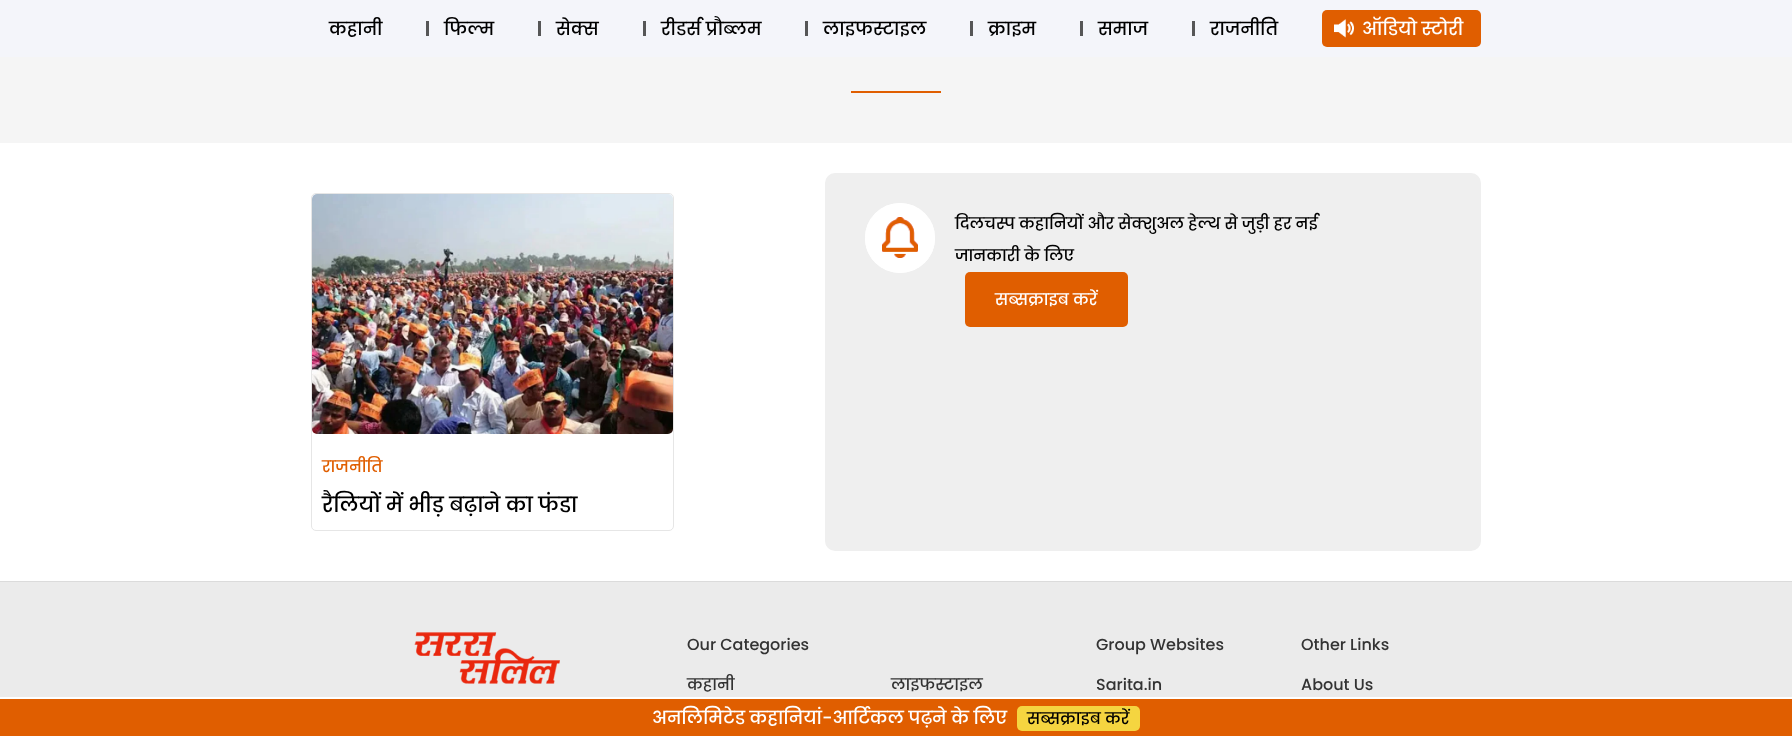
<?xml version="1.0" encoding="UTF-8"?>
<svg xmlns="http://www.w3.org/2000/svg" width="1792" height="736">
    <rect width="100%" height="100%" fill="#FFFFFF"/>
    <rect x="0" y="0" width="1792" height="57" fill="#F4F5FA"/>
    <text x="329" y="35" font-family="Poppins" font-size="18" font-weight="500" fill="#000000">कहानी</text>
    <rect x="426" y="21" width="3" height="15" fill="#565657"/>
    <text x="444" y="35" font-family="Poppins" font-size="18" font-weight="500" fill="#000000">फिल्म</text>
    <rect x="538" y="21" width="3" height="15" fill="#565657"/>
    <text x="556" y="35" font-family="Poppins" font-size="18" font-weight="500" fill="#000000">सेक्स</text>
    <rect x="643" y="21" width="3" height="15" fill="#565657"/>
    <text x="661" y="35" font-family="Poppins" font-size="18" font-weight="500" fill="#000000">रीडर्स प्रौब्लम</text>
    <rect x="805" y="21" width="3" height="15" fill="#565657"/>
    <text x="823" y="35" font-family="Poppins" font-size="18" font-weight="500" fill="#000000">लाइफस्टाइल</text>
    <rect x="970" y="21" width="3" height="15" fill="#565657"/>
    <text x="988" y="35" font-family="Poppins" font-size="18" font-weight="500" fill="#000000">क्राइम</text>
    <rect x="1080" y="21" width="3" height="15" fill="#565657"/>
    <text x="1098" y="35" font-family="Poppins" font-size="18" font-weight="500" fill="#000000">समाज</text>
    <rect x="1192" y="21" width="3" height="15" fill="#565657"/>
    <text x="1210" y="35" font-family="Poppins" font-size="18" font-weight="500" fill="#000000">राजनीति</text>
    <rect x="1322" y="10" width="159" height="37" rx="5" fill="#E05E00"/>
    <image x="1334" y="19" width="20" height="19" href="img_01.png"/>
    <text x="1362" y="35" font-family="Poppins" font-size="18" font-weight="500" fill="#FFFFFF">ऑडियो स्टोरी</text>
    <rect x="0" y="57" width="1792" height="86" fill="#F5F5F5"/>
    <rect x="851" y="91" width="90" height="2" fill="#E05E00"/>
    <rect x="825" y="173" width="656" height="378" rx="10" fill="#EFEFEF"/>
    <circle cx="900" cy="238" r="35" fill="#FFFFFF"/>
    <image x="882" y="217" width="36" height="41" href="img_02.png"/>
    <circle cx="900" cy="238" r="33.5" fill="none" stroke="#FFFFFF" stroke-width="3"/>
    <text x="955" y="229" font-family="Poppins" font-size="16" font-weight="500" fill="#000000">दिलचस्प कहानियों और सेक्शुअल हेल्थ से जुड़ी हर नई</text>
    <text x="955" y="261" font-family="Poppins" font-size="16" font-weight="500" fill="#000000">जानकारी के लिए</text>
    <rect x="965" y="272" width="163" height="55" rx="5" fill="#E05E00"/>
    <text x="995" y="305" font-family="Poppins" font-size="16" font-weight="500" fill="#FFFFFF">सब्सक्राइब करें</text>
    <rect x="311.5" y="193.5" width="362" height="337" rx="4.5" fill="none" stroke="#E6E6E6"/>
    <image x="312" y="194" width="361" height="240" href="img_03.png"/>
    <text x="322" y="472" font-family="Poppins" font-size="16" font-weight="500" fill="#E05E00">राजनीति</text>
    <text x="322" y="512" font-family="Poppins" font-size="21" font-weight="500" fill="#000000">रैलियों में भीड़ बढ़ाने का फंडा</text>
    <rect x="0" y="582" width="1792" height="115" fill="#EBEBEB"/>
    <rect x="0" y="581" width="1792" height="1" fill="#DBDBDB"/>
    <image x="414" y="632" width="146" height="52" href="img_04.png"/>
    <text x="687" y="650" font-family="Poppins" font-size="16" font-weight="500" fill="#333333">Our Categories</text>
    <text x="687" y="690" font-family="Poppins" font-size="16" font-weight="500" fill="#333333">कहानी</text>
    <text x="891" y="690" font-family="Poppins" font-size="16" font-weight="500" fill="#333333">लाइफस्टाइल</text>
    <text x="1096" y="650" font-family="Poppins" font-size="16" font-weight="500" fill="#333333">Group Websites</text>
    <text x="1096" y="690" font-family="Poppins" font-size="16" font-weight="500" fill="#333333">Sarita.in</text>
    <text x="1301" y="650" font-family="Poppins" font-size="16" font-weight="500" fill="#333333">Other Links</text>
    <text x="1301" y="690" font-family="Poppins" font-size="16" font-weight="500" fill="#333333">About Us</text>
    <rect x="0" y="699" width="1792" height="37" fill="#E05E00"/>
    <text x="652" y="724" font-family="Poppins" font-size="18" font-weight="500" fill="#FFFFFF">अनलिमिटेड कहानियां-आर्टिकल पढ़ने के लिए</text>
    <rect x="1017" y="706" width="123" height="25" rx="5" fill="#F5D540"/>
    <text x="1027" y="724" font-family="Poppins" font-size="16" font-weight="500" fill="#000000">सब्सक्राइब करें</text>
</svg>
